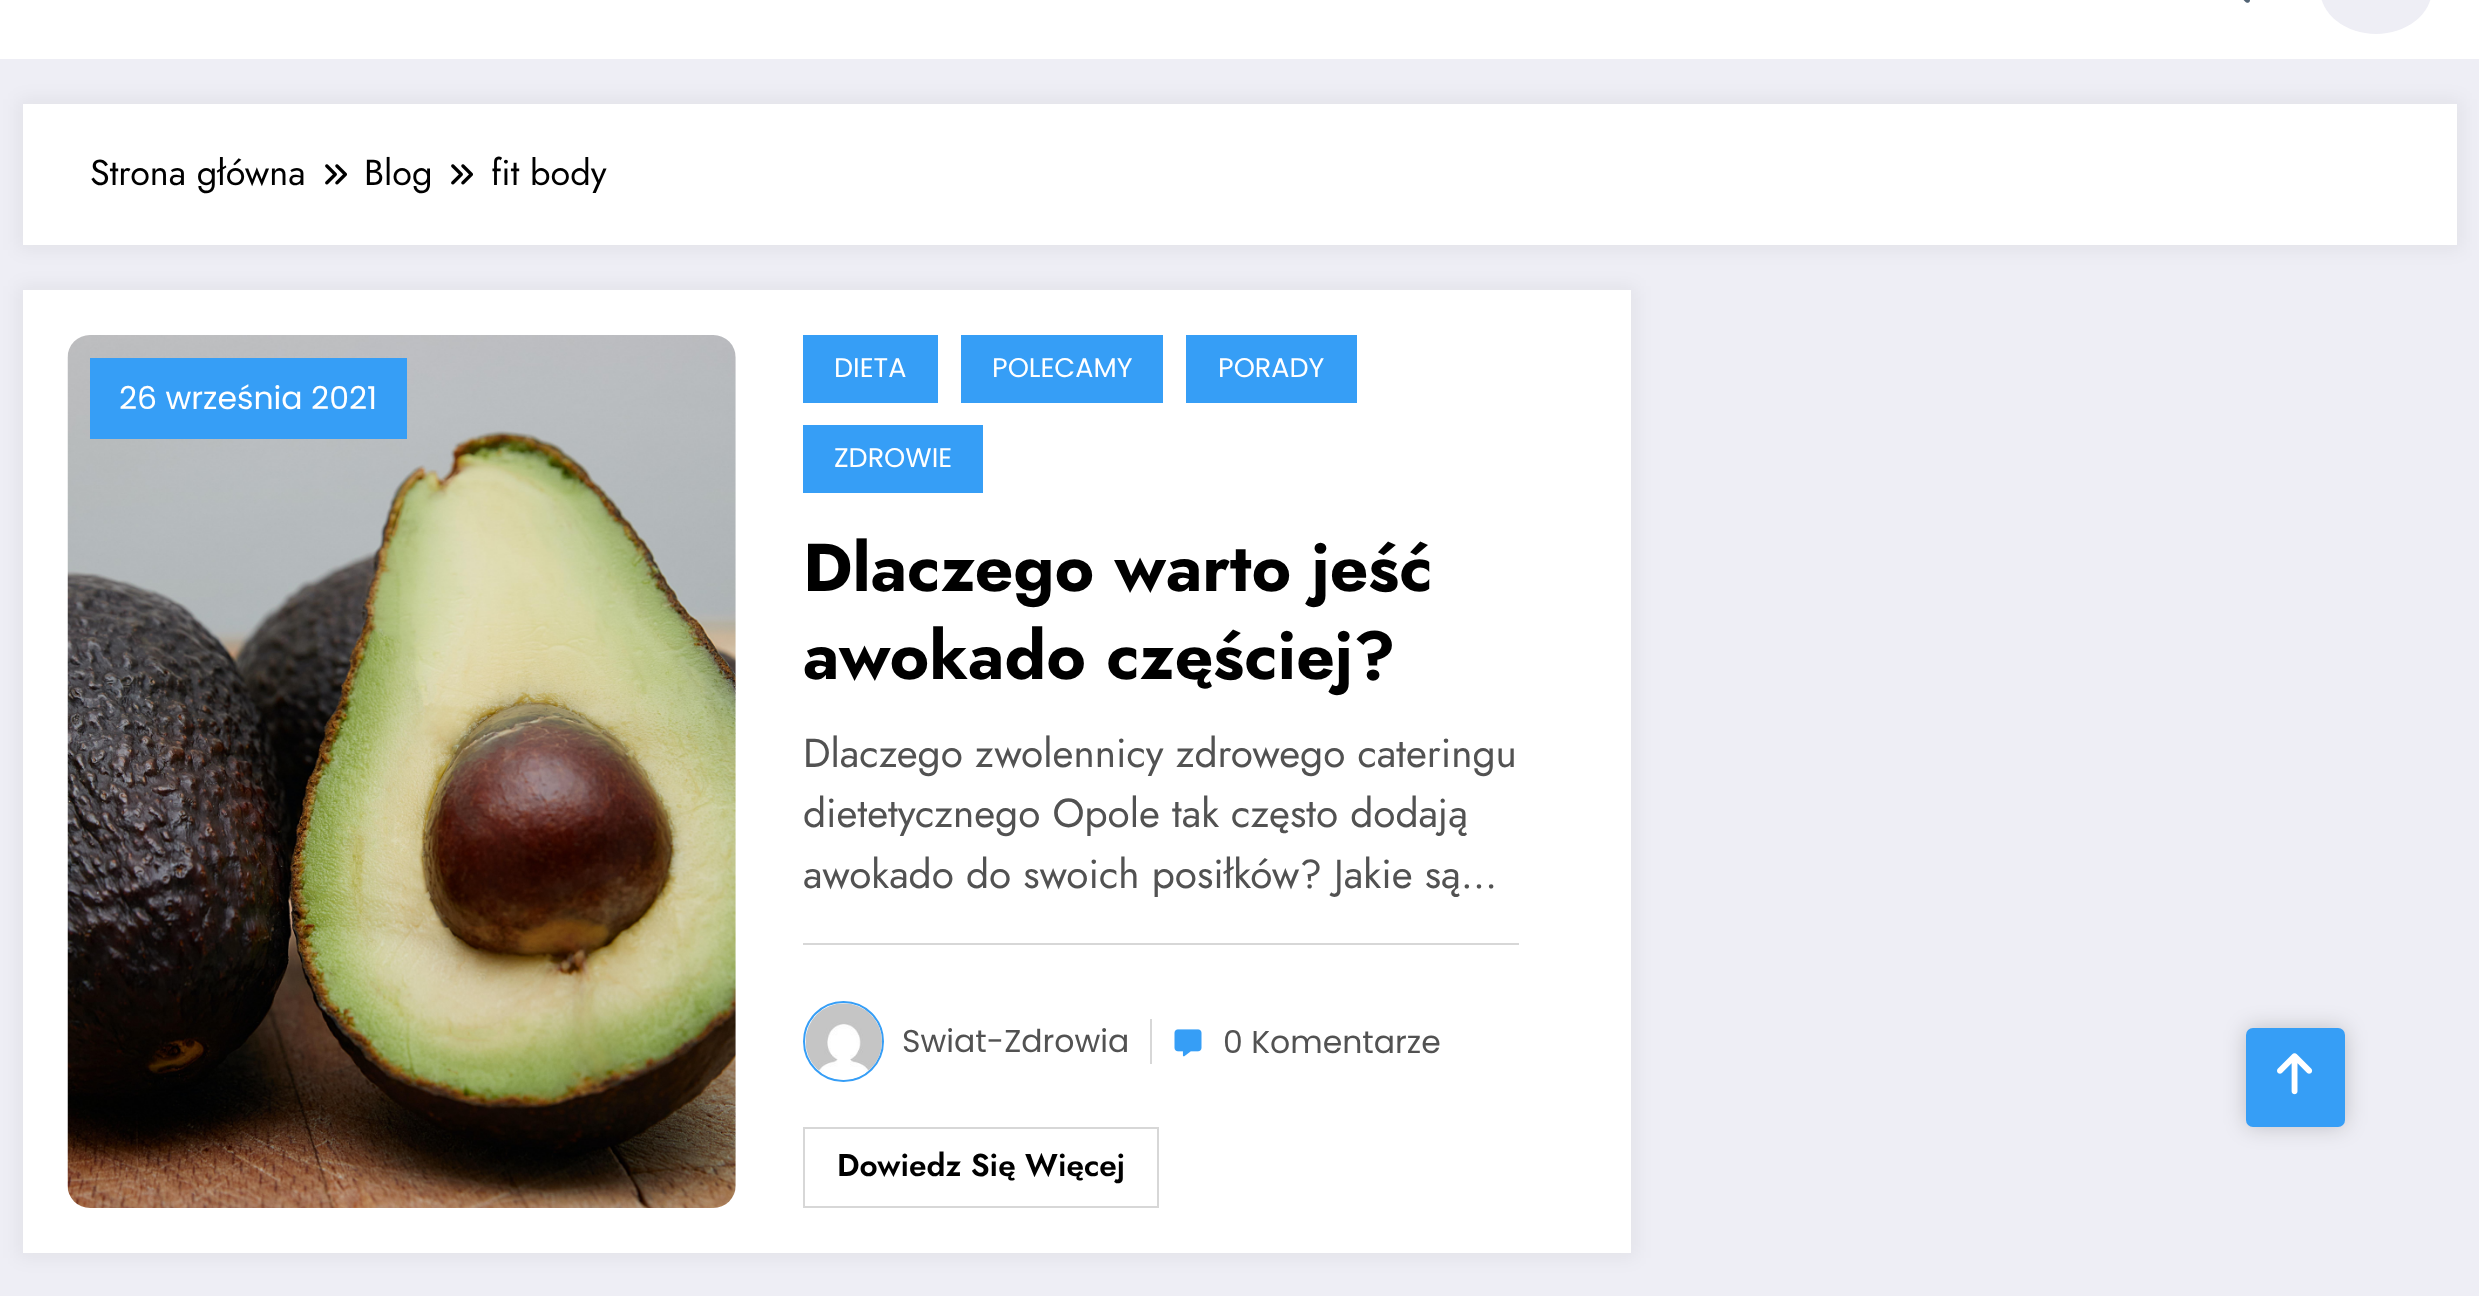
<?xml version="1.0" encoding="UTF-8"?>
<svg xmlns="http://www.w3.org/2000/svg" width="2479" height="1296">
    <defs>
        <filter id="blur1" x="-50%" y="-200%" width="200%" height="500%"><feGaussianBlur stdDeviation="9"/></filter>
        <filter id="blur2" x="-50%" y="-200%" width="200%" height="500%"><feGaussianBlur stdDeviation="11"/></filter>
    </defs>
    <rect width="100%" height="100%" fill="#EEEEF5"/>
    <rect x="0" y="0" width="2479" height="59" fill="#FFFFFF"/>
    <image x="2243" y="0" width="7" height="3" href="img_01.png"/>
    <rect x="2320" y="-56" width="112" height="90" rx="56" fill="#EEEEF5"/>
    <rect x="18" y="99" width="2444" height="151" fill="#171723" fill-opacity="0.05" filter="url(#blur1)"/>
    <rect x="23" y="104" width="2434" height="141" fill="#FFFFFF"/>
    <text x="90" y="185" font-family="Jost" font-size="36" fill="#000000">Strona główna</text>
    <image x="325" y="164" width="22" height="21" href="img_02.png"/>
    <text x="364" y="185" font-family="Jost" font-size="36" fill="#000000">Blog</text>
    <image x="451" y="164" width="22" height="21" href="img_02.png"/>
    <text x="491" y="185" font-family="Jost" font-size="36" fill="#000000">fit body</text>
    <rect x="18" y="286" width="1618" height="972" fill="#171723" fill-opacity="0.05" filter="url(#blur1)"/>
    <rect x="23" y="290" width="1608" height="963" fill="#FFFFFF"/>
    <image x="67" y="335" width="669" height="873" href="img_03.png"/>
    <rect x="90" y="358" width="317" height="81" fill="#369EF6"/>
    <text x="119" y="409" font-family="Poppins" font-size="31.5" fill="#FFFFFF">26 września 2021</text>
    <rect x="803" y="335" width="135" height="68" fill="#369EF6"/>
    <text x="834" y="377" font-family="Poppins" font-size="27" fill="#FFFFFF">DIETA</text>
    <rect x="961" y="335" width="202" height="68" fill="#369EF6"/>
    <text x="992" y="377" font-family="Poppins" font-size="27" fill="#FFFFFF">POLECAMY</text>
    <rect x="1186" y="335" width="171" height="68" fill="#369EF6"/>
    <text x="1218" y="377" font-family="Poppins" font-size="27" fill="#FFFFFF">PORADY</text>
    <rect x="803" y="425" width="180" height="68" fill="#369EF6"/>
    <text x="834" y="467" font-family="Poppins" font-size="27" fill="#FFFFFF">ZDROWIE</text>
    <text font-family="Jost" font-size="67.5" font-weight="700" fill="#000000">
        <tspan x="803" y="591">Dlaczego warto jeść</tspan>
        <tspan x="803" y="679">awokado częściej?</tspan>
    </text>
    <rect x="803" y="943" width="716" height="2" fill="#D7D7D7"/>
    <text font-family="Jost" font-size="40.5" fill="#525252">
        <tspan x="803" y="767">Dlaczego zwolennicy zdrowego cateringu</tspan>
        <tspan x="803" y="827">dietetycznego Opole tak często dodają</tspan>
        <tspan x="803" y="888">awokado do swoich posiłków? Jakie są…</tspan>
    </text>
    <circle cx="843.5" cy="1041.5" r="39.5" fill="none" stroke="#369EF6" stroke-width="2"/>
    <image x="805" y="1003" width="77" height="77" href="img_04.png"/>
    <text x="902" y="1052" font-family="Poppins" font-size="31.5" fill="#525252">Swiat-Zdrowia</text>
    <rect x="1150" y="1019" width="2" height="45" fill="#D7D7D7"/>
    <image x="1174" y="1029" width="28" height="28" href="img_05.png"/>
    <text x="1223" y="1053" font-family="Poppins" font-size="31.5" fill="#525252">0 Komentarze</text>
    <rect x="804" y="1128" width="354" height="79" fill="none" stroke="#D7D7D7" stroke-width="2"/>
    <text x="837" y="1176" font-family="Jost" font-size="31.5" font-weight="600" fill="#000000">Dowiedz Się Więcej</text>
    <rect x="2246" y="1028" width="99" height="99" rx="7" fill="#000000" fill-opacity="0.2" filter="url(#blur2)"/>
    <rect x="2246" y="1028" width="99" height="99" rx="7" fill="#369EF6"/>
    <image x="2277" y="1053" width="36" height="42" href="img_06.png"/>
</svg>
